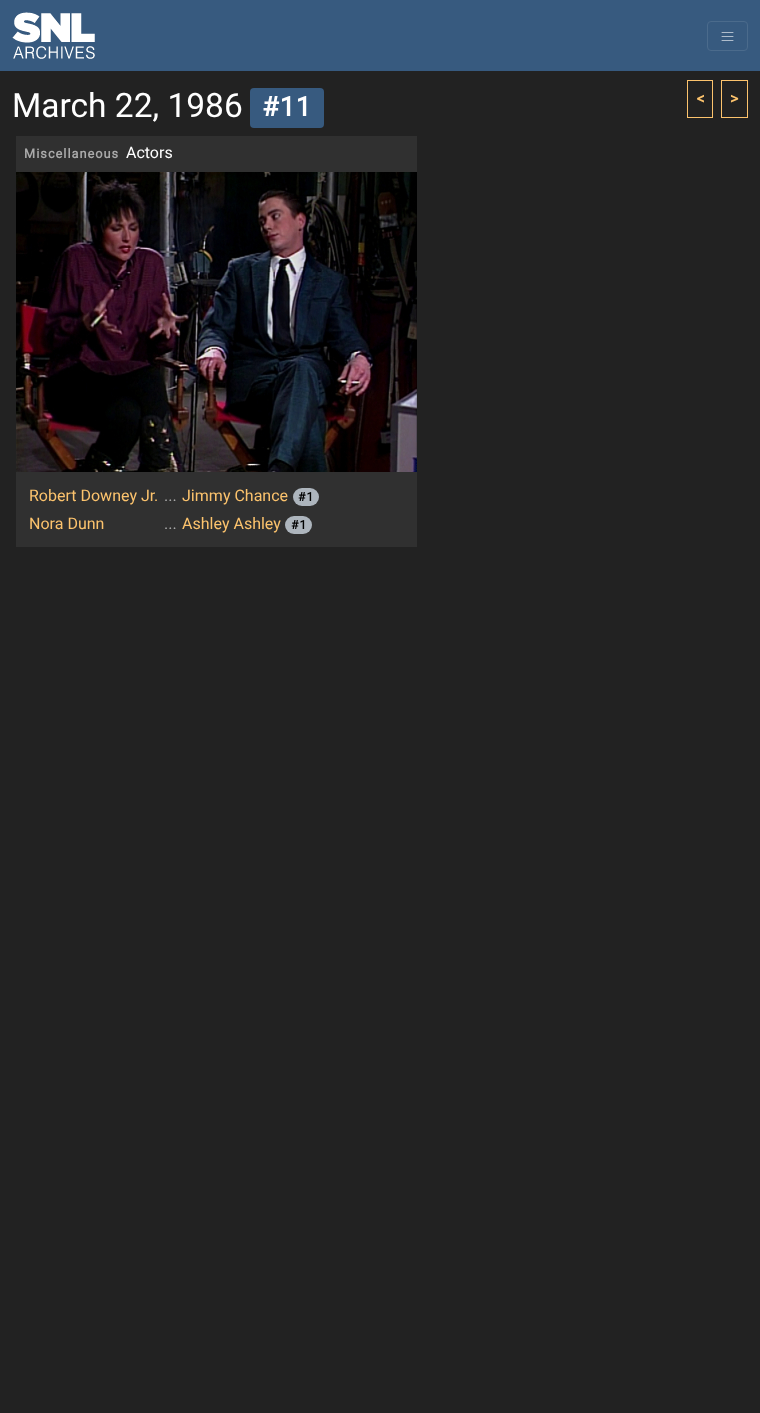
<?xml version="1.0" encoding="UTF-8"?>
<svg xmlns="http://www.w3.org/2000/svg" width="760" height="1413">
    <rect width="100%" height="100%" fill="#222222"/>
    <rect x="0" y="0" width="760" height="71" fill="#375A7F"/>
    <image x="12" y="12" width="83" height="47" href="img_01.png"/>
    <rect x="707.5" y="21.5" width="40" height="29" rx="3.5" fill="none" stroke="#4B6B8C"/>
    <image x="721" y="32" width="13" height="9" href="img_02.png"/>
    <text x="12" y="117" font-family="Heebo" font-size="33.5" fill="#FFFFFF">March 22, 1986</text>
    <rect x="250" y="88" width="74" height="40" rx="4" fill="#375A7F"/>
    <text x="262" y="116" font-family="Heebo" font-size="27" font-weight="700" letter-spacing="1" fill="#FFFFFF">#11</text>
    <rect x="687.5" y="80.5" width="25" height="37" fill="none" stroke="#FCC36D"/>
    <text x="696" y="104" font-family="Heebo" font-size="16" font-weight="700" fill="#FCC36D">&lt;</text>
    <rect x="721.5" y="80.5" width="26" height="37" fill="none" stroke="#FCC36D"/>
    <text x="730" y="104" font-family="Heebo" font-size="16" font-weight="700" fill="#FCC36D">&gt;</text>
    <rect x="16" y="136" width="401" height="411" fill="#303030"/>
    <text x="24" y="158" font-family="Heebo" font-size="12.75" font-weight="700" letter-spacing="1" fill="#AAAAAA">Miscellaneous</text>
    <text x="126" y="158" font-family="Heebo" font-size="16" fill="#FFFFFF">Actors</text>
    <image x="16" y="172" width="401" height="300" href="img_03.png"/>
    <text x="29" y="501" font-family="Heebo" font-size="16" fill="#FCC36D">Robert Downey Jr.</text>
    <text x="164" y="501" font-family="Heebo" font-size="16" fill="#AAAAAA">...</text>
    <text x="182" y="501" font-family="Heebo" font-size="16" fill="#FCC36D">Jimmy Chance</text>
    <rect x="293" y="488" width="26" height="18" rx="9" fill="#ADB5BD"/>
    <text x="298" y="501" font-family="Heebo" font-size="12" font-weight="700" letter-spacing="1" fill="#000000">#1</text>
    <text x="29" y="529" font-family="Heebo" font-size="16" fill="#FCC36D">Nora Dunn</text>
    <text x="164" y="529" font-family="Heebo" font-size="16" fill="#AAAAAA">...</text>
    <text x="182" y="529" font-family="Heebo" font-size="16" fill="#FCC36D">Ashley Ashley</text>
    <rect x="285" y="516" width="27" height="18" rx="9" fill="#ADB5BD"/>
    <text x="291" y="529" font-family="Heebo" font-size="12" font-weight="700" letter-spacing="1" fill="#000000">#1</text>
</svg>
